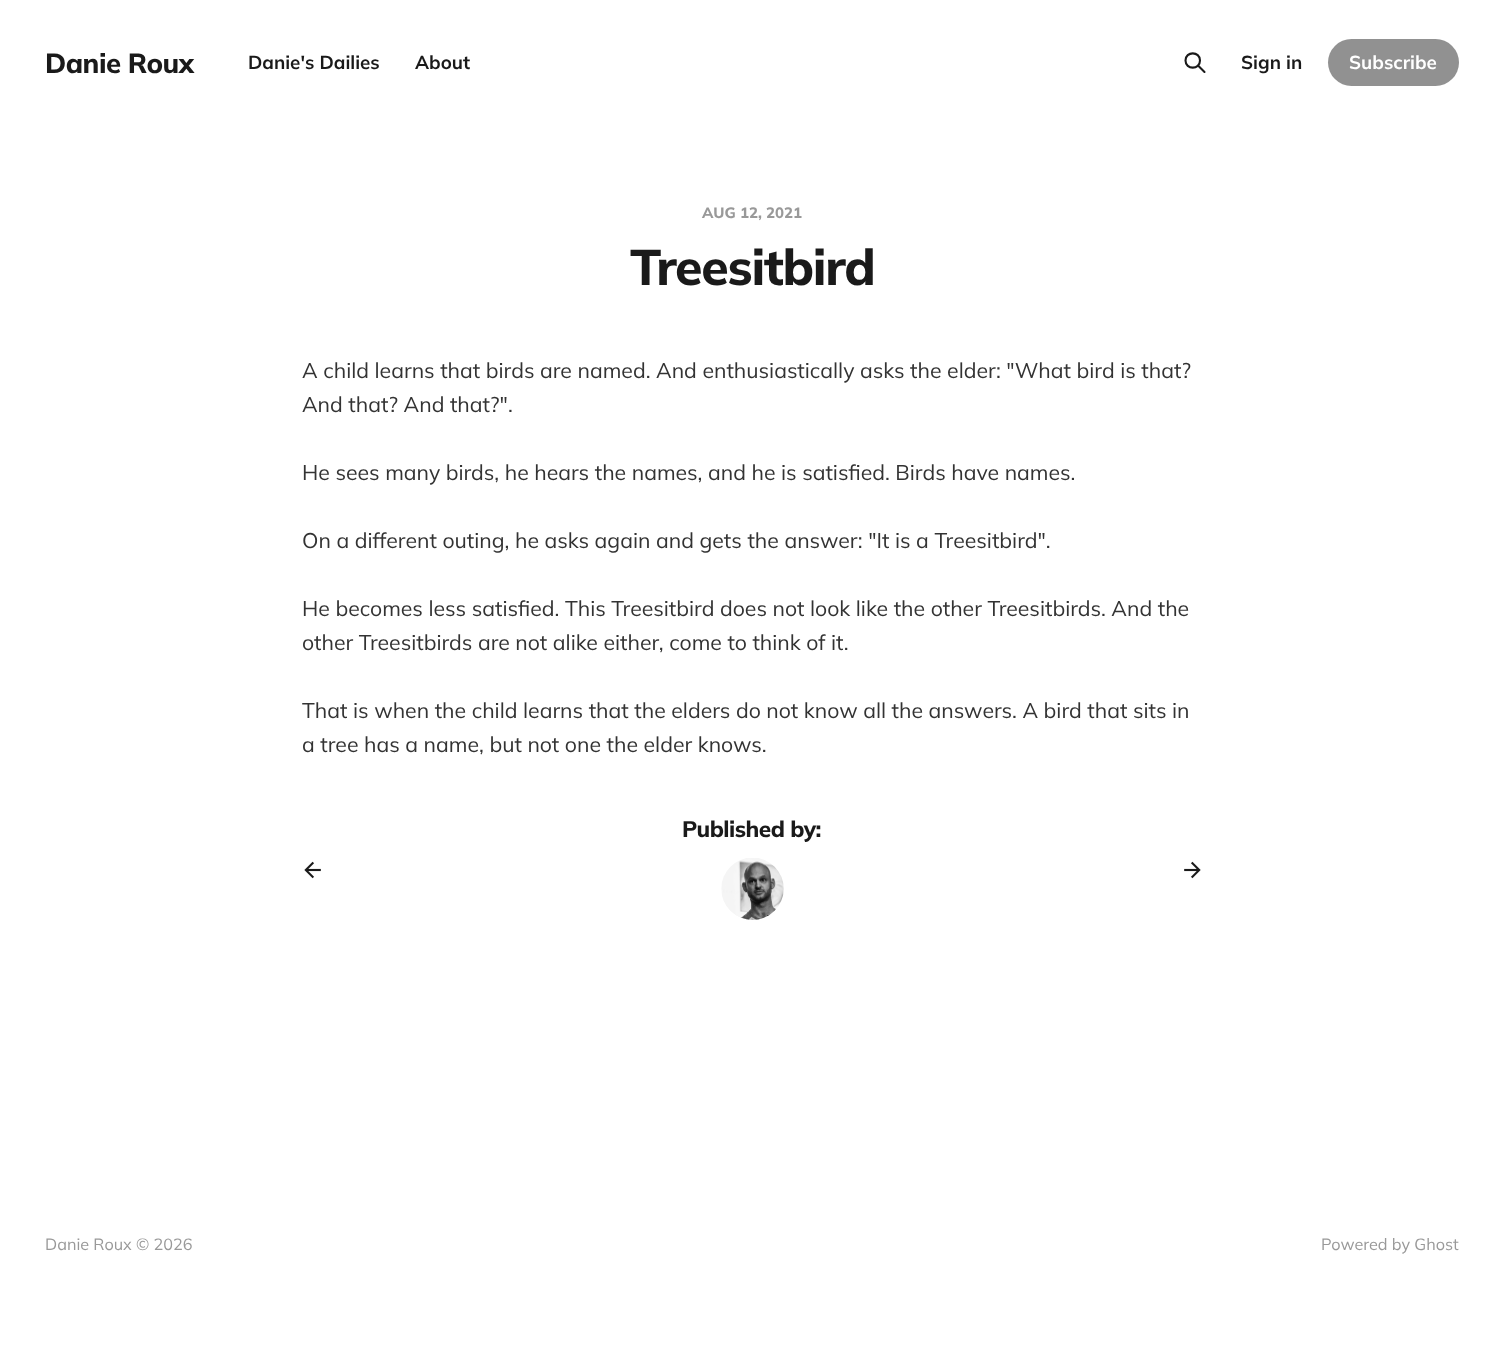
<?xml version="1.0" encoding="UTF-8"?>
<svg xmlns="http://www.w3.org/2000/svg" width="1503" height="1357">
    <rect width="100%" height="100%" fill="#FFFFFF"/>
    <text x="45" y="73" font-family="'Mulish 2'" font-size="27.5" font-weight="200" letter-spacing="-0.5" fill="#1A1A1A">Danie Roux</text>
    <text x="248" y="69" font-family="Mulish" font-size="18.75" font-weight="200" fill="#1A1A1A">Danie's Dailies</text>
    <text x="415" y="69" font-family="Mulish" font-size="18.75" font-weight="200" fill="#1A1A1A">About</text>
    <path d="M 1204.5 72 L 1198 65.5 M 1200 60.5 C 1200 70 1185.5 70 1185.5 60.5 C 1185.5 51 1200 51 1200 60.5 Z" fill="none" stroke="#1A1A1A" stroke-width="2.1" stroke-linecap="round" stroke-linejoin="round"/>
    <text x="1241" y="69" font-family="Mulish" font-size="18.75" font-weight="200" fill="#1A1A1A">Sign in</text>
    <rect x="1328" y="39" width="131" height="47" rx="23.5" fill="#919191"/>
    <text x="1349" y="69" font-family="Mulish" font-size="18.75" font-weight="200" fill="#FFFFFF">Subscribe</text>
    <text x="702" y="218" font-family="'Mulish 2'" font-size="15" font-weight="200" fill="#999999">AUG 12, 2021</text>
    <text x="630" y="285" font-family="'Mulish 2'" font-size="50" font-weight="200" letter-spacing="-1.25" fill="#1A1A1A">Treesitbird</text>
    <text font-family="'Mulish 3'" font-size="21.25" font-weight="200" fill="#333333">
        <tspan x="302" y="378">A child learns that birds are named. And enthusiastically asks the elder: "What bird is that?</tspan>
        <tspan x="302" y="412">And that? And that?".</tspan>
    </text>
    <text x="302" y="480" font-family="'Mulish 3'" font-size="21.25" font-weight="200" fill="#333333">He sees many birds, he hears the names, and he is satisfied. Birds have names.</text>
    <text x="302" y="548" font-family="'Mulish 3'" font-size="21.25" font-weight="200" fill="#333333">On a different outing, he asks again and gets the answer: "It is a Treesitbird".</text>
    <text font-family="'Mulish 3'" font-size="21.25" font-weight="200" fill="#333333">
        <tspan x="302" y="616">He becomes less satisfied. This Treesitbird does not look like the other Treesitbirds. And the</tspan>
        <tspan x="302" y="650">other Treesitbirds are not alike either, come to think of it.</tspan>
    </text>
    <text font-family="'Mulish 3'" font-size="21.25" font-weight="200" fill="#333333">
        <tspan x="302" y="718">That is when the child learns that the elders do not know all the answers. A bird that sits in</tspan>
        <tspan x="302" y="752">a tree has a name, but not one the elder knows.</tspan>
    </text>
    <text x="682" y="837" font-family="'Mulish 2'" font-size="22.5" font-weight="200" letter-spacing="-0.5" fill="#1A1A1A">Published by:</text>
    <rect x="720.5" y="856.5" width="64" height="65" rx="32" fill="#F6F6F6" stroke="#FFFFFF" stroke-width="3"/>
    <image x="721" y="858" width="63" height="62" href="img_01.png"/>
    <image x="304" y="861" width="17" height="18" href="img_02.png"/>
    <image x="1184" y="861" width="17" height="18" href="img_03.png"/>
    <text x="45" y="1250" font-family="'Mulish 3'" font-size="16.25" font-weight="200" fill="#999999">Danie Roux © 2026</text>
    <text x="1321" y="1250" font-family="'Mulish 3'" font-size="16.25" font-weight="200" fill="#999999">Powered by Ghost</text>
</svg>
